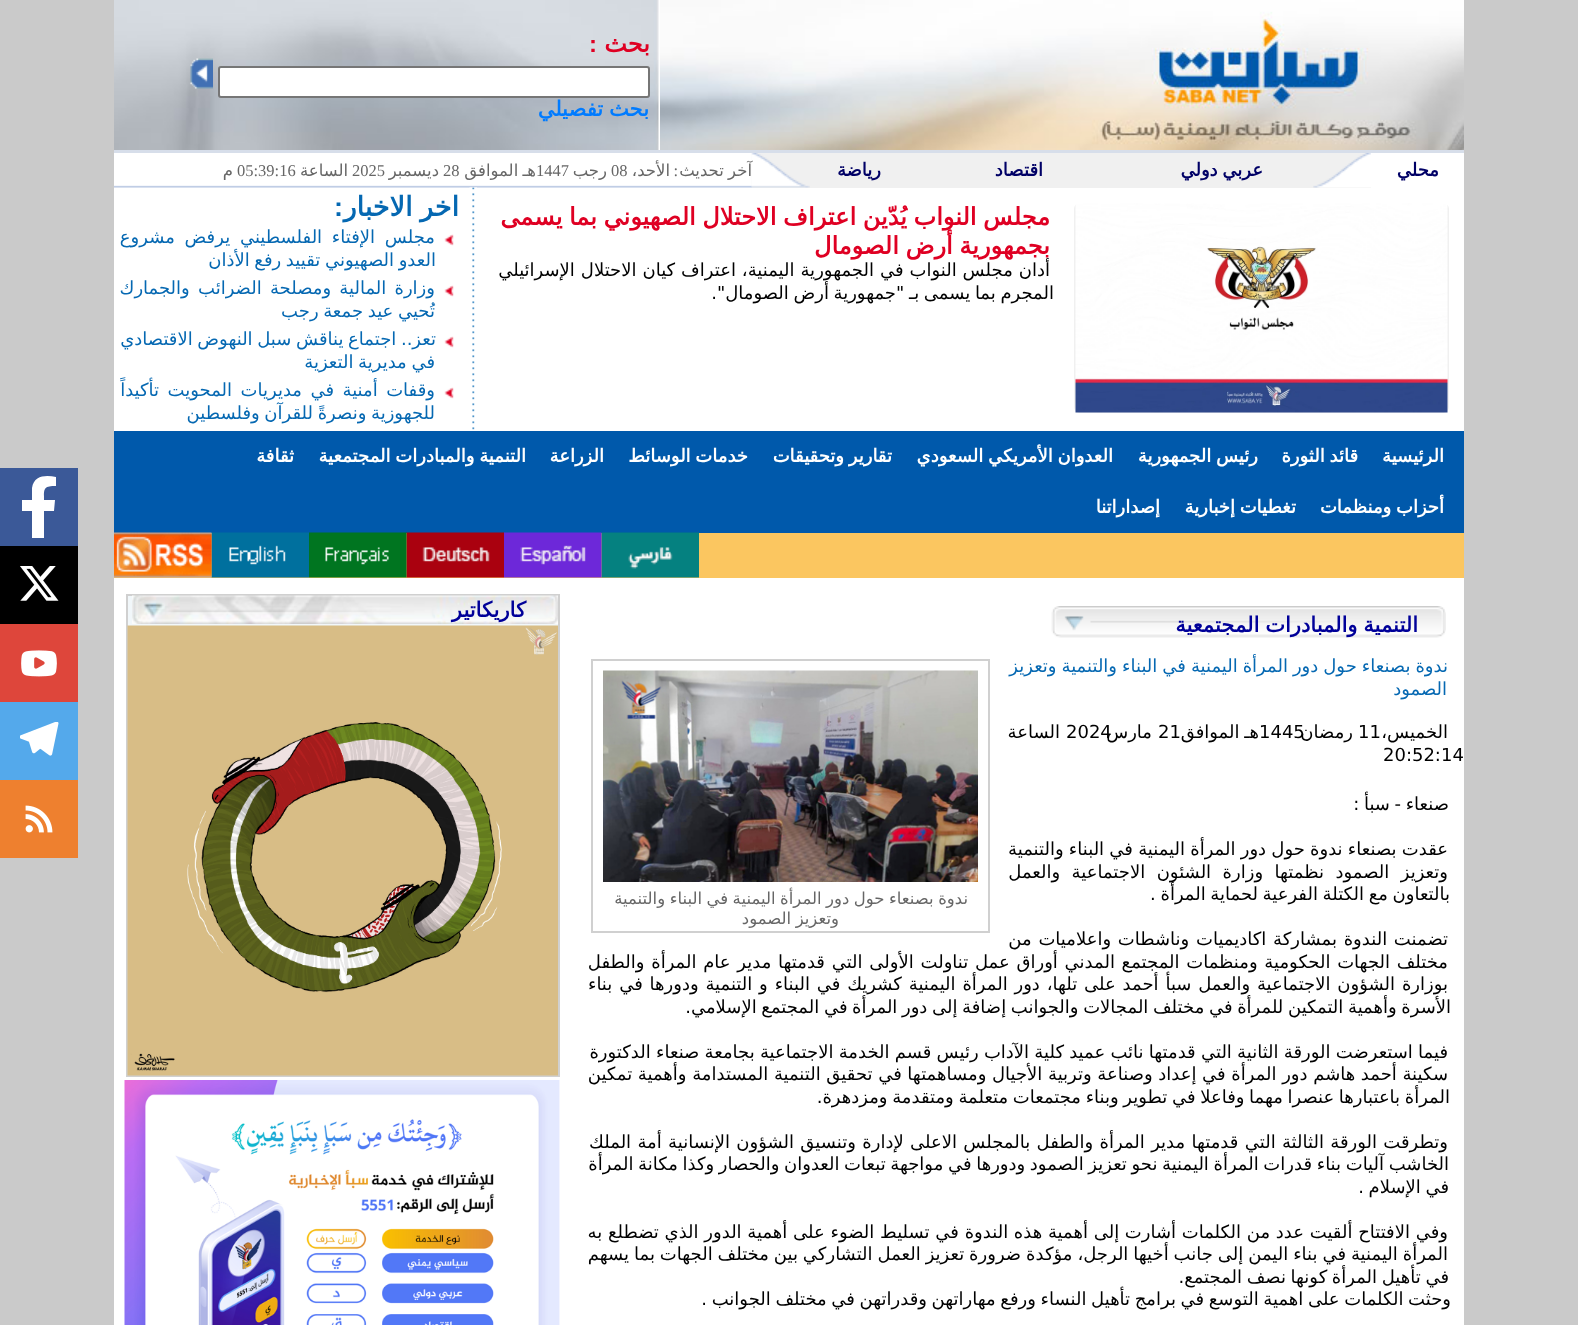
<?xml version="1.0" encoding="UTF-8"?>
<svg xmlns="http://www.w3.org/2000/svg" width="1578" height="1325">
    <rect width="100%" height="100%" fill="#CACACA"/>
    <rect x="114" y="0" width="1350" height="1325" fill="#FFFFFF"/>
    <image x="660" y="0" width="804" height="150" href="img_01.png"/>
    <image x="114" y="0" width="545" height="150" href="img_02.png"/>
    <text x="650" y="52" font-family="DejaVu Sans" font-size="24" font-weight="700" direction="rtl" fill="#DF0023">بحث</text>
    <text x="597" y="52" font-family="Liberation Sans" font-size="24" font-weight="700" direction="rtl" fill="#DF0023">:</text>
    <rect x="219" y="67" width="430" height="30" rx="2" fill="#FFFFFF" stroke="#767676" stroke-width="2"/>
    <image x="190" y="58" width="23" height="31" href="img_03.png"/>
    <text x="649" y="116" word-spacing="-0.8" font-family="DejaVu Sans" font-size="21" font-weight="700" direction="rtl" fill="#007BFF">بحث تفصيلي</text>
    <rect x="114" y="150" width="1350" height="3" fill="#D7DEEA"/>
    <image x="751" y="153" width="1" height="35" href="img_04.png"/>
    <rect x="752" y="153" width="619" height="35" fill="#F0F0F0"/>
    <text x="1439" y="176" font-family="DejaVu Sans" font-size="18" font-weight="700" direction="rtl" fill="#000066">محلي</text>
    <image x="1313" y="153" width="58" height="35" href="img_05.png"/>
    <text x="1263" y="176" word-spacing="-1" font-family="DejaVu Sans" font-size="18" font-weight="700" direction="rtl" fill="#000066">عربي دولي</text>
    <text x="1043" y="176" font-family="DejaVu Sans" font-size="18" font-weight="700" direction="rtl" fill="#000066">اقتصاد</text>
    <text x="881" y="176" font-family="DejaVu Sans" font-size="18" font-weight="700" direction="rtl" fill="#000066">رياضة</text>
    <image x="751" y="153" width="59" height="35" href="img_06.png"/>
    <image x="114" y="153" width="638" height="35" href="img_07.png"/>
    <text x="752" y="176" word-spacing="-1" font-family="DejaVu Sans" font-size="16.5" direction="rtl" fill="#666666">آخر تحديث</text>
    <text x="678" y="176" font-family="Liberation Serif" font-size="16.5" direction="rtl" fill="#666666">:</text>
    <text x="670" y="176" font-family="DejaVu Sans" font-size="16.5" direction="rtl" fill="#666666">الأحد،</text>
    <text x="611" y="176" font-family="Liberation Serif" font-size="16.5" fill="#666666">08</text>
    <text x="607" y="176" font-family="DejaVu Sans" font-size="16.5" direction="rtl" fill="#666666">رجب</text>
    <text x="536" y="176" font-family="Liberation Serif" font-size="16.5" fill="#666666">1447</text>
    <text x="536" y="176" word-spacing="-1" font-family="DejaVu Sans" font-size="16.5" direction="rtl" fill="#666666">هـ الموافق</text>
    <text x="443" y="176" font-family="Liberation Serif" font-size="16.5" fill="#666666">28</text>
    <text x="439" y="176" font-family="DejaVu Sans" font-size="16.5" direction="rtl" fill="#666666">ديسمبر</text>
    <text x="352" y="176" font-family="Liberation Serif" font-size="16.5" fill="#666666">2025</text>
    <text x="348" y="176" font-family="DejaVu Sans" font-size="16.5" direction="rtl" fill="#666666">الساعة</text>
    <text x="237" y="176" font-family="Liberation Serif" font-size="16.5" fill="#666666">05:39:16</text>
    <text x="233" y="176" font-family="DejaVu Sans" font-size="16.5" direction="rtl" fill="#666666">م</text>
    <rect x="1074" y="203" width="375" height="210" rx="6" fill="#F0F0F0"/>
    <image x="1075" y="203" width="373" height="210" href="img_08.png"/>
    <text font-family="DejaVu Sans" font-size="24" font-weight="700" direction="rtl" fill="#DF0023">
        <tspan x="1050" y="225" word-spacing="-1">مجلس النواب يُدّين اعتراف الاحتلال الصهيوني بما يسمى</tspan>
        <tspan x="1050" y="254" word-spacing="-1">بجمهورية أرض الصومال</tspan>
    </text>
    <text x="1050" y="276" word-spacing="0.25" font-family="DejaVu Sans" font-size="18" direction="rtl" fill="#000000">أدان مجلس النواب في الجمهورية اليمنية، اعتراف كيان الاحتلال الإسرائيلي</text>
    <text x="1054" y="299" word-spacing="-1.1" font-family="DejaVu Sans" font-size="18" direction="rtl" fill="#000000">المجرم بما يسمى بـ "جمهورية أرض الصومال".</text>
    <image x="469" y="187" width="8" height="243" href="img_09.png"/>
    <text x="459" y="216" word-spacing="-1.1" font-family="DejaVu Sans" font-size="27" font-weight="700" direction="rtl" fill="#0568B2">اخر الاخبار</text>
    <text x="343" y="216" font-family="Liberation Sans" font-size="27" font-weight="700" direction="rtl" fill="#0568B2">:</text>
    <image x="444" y="234" width="10" height="12" href="img_10.png"/>
    <text x="435" y="243" word-spacing="4" font-family="DejaVu Sans" font-size="18" direction="rtl" fill="#0568B2">مجلس الإفتاء الفلسطيني يرفض مشروع</text>
    <text x="436" y="266" word-spacing="-1.1" font-family="DejaVu Sans" font-size="18" direction="rtl" fill="#0568B2">العدو الصهيوني تقييد رفع الأذان</text>
    <image x="444" y="285" width="10" height="12" href="img_10.png"/>
    <text font-family="DejaVu Sans" font-size="18" direction="rtl" fill="#0568B2">
        <tspan x="435" y="294" word-spacing="2.5">وزارة المالية ومصلحة الضرائب والجمارك</tspan>
        <tspan x="435" y="317" word-spacing="-1.1">تُحيي عيد جمعة رجب</tspan>
    </text>
    <image x="444" y="336" width="10" height="12" href="img_10.png"/>
    <text x="436" y="345" word-spacing="-1.1" font-family="DejaVu Sans" font-size="18" direction="rtl" fill="#0568B2">تعز.. اجتماع يناقش سبل النهوض الاقتصادي</text>
    <text x="435" y="368" word-spacing="-1.1" font-family="DejaVu Sans" font-size="18" direction="rtl" fill="#0568B2">في مديرية التعزية</text>
    <image x="444" y="387" width="10" height="12" href="img_10.png"/>
    <text font-family="DejaVu Sans" font-size="18" direction="rtl" fill="#0568B2">
        <tspan x="435" y="396" word-spacing="2.75">وقفات أمنية في مديريات المحويت تأكيداً</tspan>
        <tspan x="435" y="419" word-spacing="-1.1">للجهوزية ونصرةً للقرآن وفلسطين</tspan>
    </text>
    <rect x="114" y="431" width="1350" height="102" fill="#0059AB"/>
    <text x="1444" y="462" font-family="DejaVu Sans" font-size="18" font-weight="700" direction="rtl" fill="#FFFFFF">الرئيسية</text>
    <text x="1358" y="462" word-spacing="-1" font-family="DejaVu Sans" font-size="18" font-weight="700" direction="rtl" fill="#FFFFFF">قائد الثورة</text>
    <text x="1258" y="462" word-spacing="-1" font-family="DejaVu Sans" font-size="18" font-weight="700" direction="rtl" fill="#FFFFFF">رئيس الجمهورية</text>
    <text x="1113" y="462" word-spacing="-1" font-family="DejaVu Sans" font-size="18" font-weight="700" direction="rtl" fill="#FFFFFF">العدوان الأمريكي السعودي</text>
    <text x="892" y="462" word-spacing="-1" font-family="DejaVu Sans" font-size="18" font-weight="700" direction="rtl" fill="#FFFFFF">تقارير وتحقيقات</text>
    <text x="748" y="462" word-spacing="-1" font-family="DejaVu Sans" font-size="18" font-weight="700" direction="rtl" fill="#FFFFFF">خدمات الوسائط</text>
    <text x="604" y="462" font-family="DejaVu Sans" font-size="18" font-weight="700" direction="rtl" fill="#FFFFFF">الزراعة</text>
    <text x="526" y="462" word-spacing="-1" font-family="DejaVu Sans" font-size="18" font-weight="700" direction="rtl" fill="#FFFFFF">التنمية والمبادرات المجتمعية</text>
    <text x="294" y="462" font-family="DejaVu Sans" font-size="18" font-weight="700" direction="rtl" fill="#FFFFFF">ثقافة</text>
    <text x="1444" y="513" word-spacing="-1" font-family="DejaVu Sans" font-size="18" font-weight="700" direction="rtl" fill="#FFFFFF">أحزاب ومنظمات</text>
    <text x="1296" y="513" word-spacing="-1" font-family="DejaVu Sans" font-size="18" font-weight="700" direction="rtl" fill="#FFFFFF">تغطيات إخبارية</text>
    <text x="1160" y="513" font-family="DejaVu Sans" font-size="18" font-weight="700" direction="rtl" fill="#FFFFFF">إصداراتنا</text>
    <rect x="114" y="533" width="1350" height="45" fill="#FBC660"/>
    <image x="601" y="532" width="98" height="46" href="img_11.png"/>
    <image x="504" y="532" width="98" height="46" href="img_12.png"/>
    <image x="406" y="532" width="98" height="46" href="img_13.png"/>
    <image x="309" y="532" width="98" height="46" href="img_14.png"/>
    <image x="211" y="532" width="98" height="46" href="img_15.png"/>
    <image x="114" y="532" width="98" height="46" href="img_16.png"/>
    <rect x="128" y="596" width="430" height="30" fill="#F1F7FA"/>
    <rect x="127" y="595" width="432" height="481" fill="none" stroke="#D0D0D0" stroke-width="2"/>
    <image x="132" y="595" width="426" height="29" href="img_17.png"/>
    <text x="526" y="617" font-family="DejaVu Sans" font-size="21" font-weight="700" direction="rtl" fill="#000099">كاريكاتير</text>
    <image x="127" y="625" width="431" height="451" href="img_18.png"/>
    <image x="124" y="1080" width="436" height="245" href="img_19.png"/>
    <image x="1051" y="606" width="395" height="32" href="img_20.png"/>
    <text x="1418" y="632" word-spacing="-0.8" font-family="DejaVu Sans" font-size="21" font-weight="700" direction="rtl" fill="#000099">التنمية والمبادرات المجتمعية</text>
    <text x="1448" y="672" word-spacing="-0.75" font-family="DejaVu Sans" font-size="18" direction="rtl" fill="#0568B2">ندوة بصنعاء حول دور المرأة اليمنية في البناء والتنمية وتعزيز</text>
    <text x="1447" y="695" font-family="DejaVu Sans" font-size="18" direction="rtl" fill="#0568B2">الصمود</text>
    <text x="1448" y="738" font-family="DejaVu Sans" font-size="18" direction="rtl" fill="#000000">الخميس،</text>
    <text x="1358" y="738" font-family="DejaVu Sans" font-size="18" fill="#000000">11</text>
    <text x="1259" y="738" font-family="DejaVu Sans" font-size="18" fill="#000000">1445</text>
    <text x="1353" y="738" font-family="DejaVu Sans" font-size="18" direction="rtl" fill="#000000">رمضان</text>
    <text x="1259" y="738" word-spacing="-1" font-family="DejaVu Sans" font-size="18" direction="rtl" fill="#000000">هـ الموافق</text>
    <text x="1158" y="738" font-family="DejaVu Sans" font-size="18" fill="#000000">21</text>
    <text x="1066" y="738" font-family="DejaVu Sans" font-size="18" fill="#000000">2024</text>
    <text x="1152" y="738" font-family="DejaVu Sans" font-size="18" direction="rtl" fill="#000000">مارس</text>
    <text x="1060" y="738" font-family="DejaVu Sans" font-size="18" direction="rtl" fill="#000000">الساعة</text>
    <text x="1383" y="761" font-family="DejaVu Sans" font-size="18" fill="#000000">20:52:14</text>
    <text x="1449" y="810" word-spacing="-1.1" font-family="DejaVu Sans" font-size="18" direction="rtl" fill="#000000">صنعاء - سبأ :</text>
    <text font-family="DejaVu Sans" font-size="18" direction="rtl" fill="#000000">
        <tspan x="1448" y="855" word-spacing="-0.5">عقدت بصنعاء ندوة حول دور المرأة اليمنية في البناء والتنمية</tspan>
        <tspan x="1448" y="878" word-spacing="5.75">وتعزيز الصمود نظمتها وزارة الشئون الاجتماعية والعمل</tspan>
    </text>
    <text x="1450" y="900" word-spacing="-1.1" font-family="DejaVu Sans" font-size="18" direction="rtl" fill="#000000">بالتعاون مع الكتلة الفرعية لحماية المرأة .</text>
    <text font-family="DejaVu Sans" font-size="18" direction="rtl" fill="#000000">
        <tspan x="1448" y="945" word-spacing="1">تضمنت الندوة بمشاركة اكاديميات وناشطات واعلاميات من</tspan>
        <tspan x="1448" y="968" word-spacing="1">مختلف الجهات الحكومية ومنظمات المجتمع المدني أوراق عمل تناولت الأولى التي قدمتها مدير عام المرأة والطفل</tspan>
        <tspan x="1448" y="990" word-spacing="1.1">بوزارة الشؤون الاجتماعية والعمل سبأ أحمد على تلها، دور المرأة اليمنية كشريك في البناء و التنمية ودورها في بناء</tspan>
    </text>
    <text x="1451" y="1013" word-spacing="-1.1" font-family="DejaVu Sans" font-size="18" direction="rtl" fill="#000000">الأسرة وأهمية التمكين للمرأة في مختلف المجالات والجوانب إضافة إلى دور المرأة في المجتمع الإسلامي.</text>
    <text font-family="DejaVu Sans" font-size="18" direction="rtl" fill="#000000">
        <tspan x="1448" y="1058" word-spacing="-0.5">فيما استعرضت الورقة الثانية التي قدمتها نائب عميد كلية الآداب رئيس قسم الخدمة الاجتماعية بجامعة صنعاء الدكتورة</tspan>
        <tspan x="1448" y="1080" word-spacing="-0.1">سكينة أحمد هاشم دور المرأة في إعداد وصناعة وتربية الأجيال ومساهمتها في تحقيق التنمية المستدامة وأهمية تمكين</tspan>
    </text>
    <text x="1450" y="1103" word-spacing="-1.1" font-family="DejaVu Sans" font-size="18" direction="rtl" fill="#000000">المرأة باعتبارها عنصرا مهما وفاعلا في تطوير وبناء مجتمعات متعلمة ومتقدمة ومزدهرة.</text>
    <text x="1448" y="1148" word-spacing="0.6" font-family="DejaVu Sans" font-size="18" direction="rtl" fill="#000000">وتطرقت الورقة الثالثة التي قدمتها مدير المرأة والطفل بالمجلس الاعلى لإدارة وتنسيق الشؤون الإنسانية أمة الملك</text>
    <text font-family="DejaVu Sans" font-size="18" direction="rtl" fill="#000000">
        <tspan x="1449" y="1170" word-spacing="-1.1">الخاشب آليات بناء قدرات المرأة اليمنية نحو تعزيز الصمود ودورها في مواجهة تبعات العدوان والحصار وكذا مكانة المرأة</tspan>
        <tspan x="1449" y="1193" word-spacing="-1.1">في الإسلام .</tspan>
    </text>
    <text font-family="DejaVu Sans" font-size="18" direction="rtl" fill="#000000">
        <tspan x="1448" y="1238">وفي الافتتاح ألقيت عدد من الكلمات أشارت إلى أهمية هذه الندوة في تسليط الضوء على أهمية الدور الذي تضطلع به</tspan>
        <tspan x="1448" y="1260" word-spacing="-0.8">المرأة اليمنية في بناء اليمن إلى جانب أخيها الرجل، مؤكدة ضرورة تعزيز العمل التشاركي بين مختلف الجهات بما يسهم</tspan>
    </text>
    <text x="1449" y="1283" word-spacing="-1.1" font-family="DejaVu Sans" font-size="18" direction="rtl" fill="#000000">في تأهيل المرأة كونها نصف المجتمع.</text>
    <text x="1451" y="1305" word-spacing="-1.1" font-family="DejaVu Sans" font-size="18" direction="rtl" fill="#000000">وحثت الكلمات على اهمية التوسع في برامج تأهيل النساء ورفع مهاراتهن وقدراتهن في مختلف الجوانب .</text>
    <rect x="592" y="660" width="397" height="272" fill="none" stroke="#D0D0D0" stroke-width="2"/>
    <image x="603" y="670" width="375" height="212" href="img_21.png"/>
    <text x="968" y="904" word-spacing="-0.75" font-family="DejaVu Sans" font-size="16.5" direction="rtl" fill="#666666">ندوة بصنعاء حول دور المرأة اليمنية في البناء والتنمية</text>
    <text x="839" y="924" word-spacing="-0.75" font-family="DejaVu Sans" font-size="16.5" direction="rtl" fill="#666666">وتعزيز الصمود</text>
    <rect x="0" y="468" width="78" height="78" fill="#3B5998"/>
    <path d="M 54 511 L 55 500 H 44 C 44 489 43 486 56 486 V 477 C 46 475 34 475 32 488 V 500 H 22 V 511 H 32 V 538 H 44 V 511 Z" fill="#FFFFFF"/>
    <rect x="0" y="546" width="78" height="78" fill="#000000"/>
    <image x="20" y="566" width="39" height="35" href="img_22.png"/>
    <rect x="0" y="624" width="78" height="78" fill="#DE463B"/>
    <image x="21" y="650" width="36" height="27" href="img_23.png"/>
    <rect x="0" y="702" width="78" height="78" fill="#54A9EB"/>
    <image x="20" y="722" width="39" height="34" href="img_24.png"/>
    <rect x="0" y="780" width="78" height="78" fill="#EE802F"/>
    <image x="25" y="805" width="28" height="28" href="img_25.png"/>
</svg>
